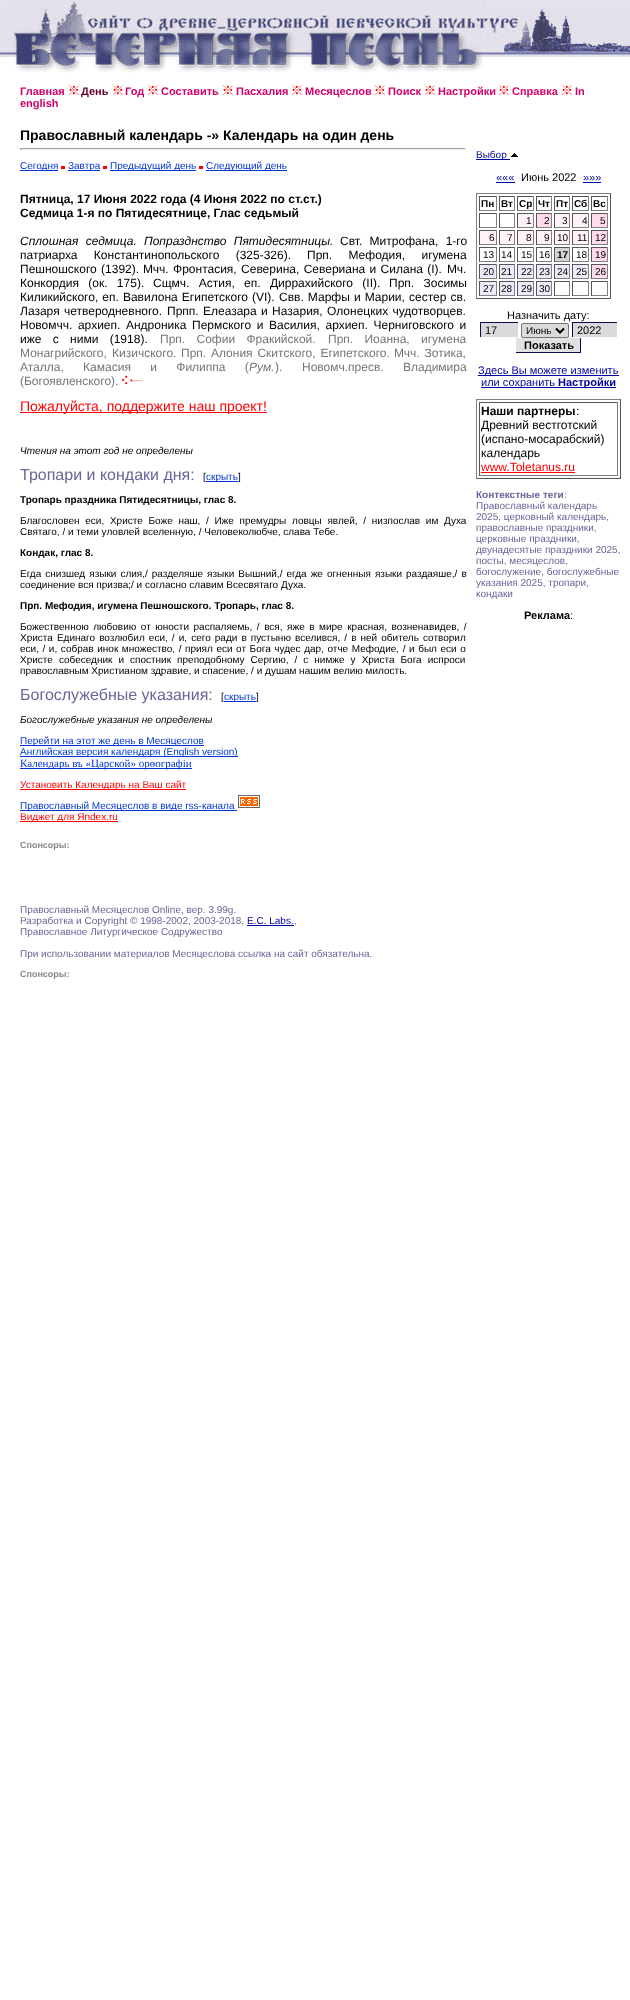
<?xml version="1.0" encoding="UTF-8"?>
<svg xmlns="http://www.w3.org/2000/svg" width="630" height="2000">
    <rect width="100%" height="100%" fill="#FFFFFF"/>
    <image x="0" y="0" width="8" height="64" href="img_01.png"/>
    <image x="8" y="0" width="290" height="73" href="img_02.png"/>
    <image x="298" y="0" width="187" height="74" href="img_03.png"/>
    <image x="485" y="0" width="145" height="58" href="img_04.png"/>
    <image x="485" y="8" width="145" height="49" href="img_05.png"/>
    <text x="20" y="95" font-family="Liberation Sans" font-size="11" font-weight="700" fill="#D20069">Главная</text>
    <image x="68" y="85" width="11" height="10" href="img_06.png"/>
    <text x="81" y="95" font-family="Liberation Sans" font-size="11" font-weight="700" fill="#660033">День</text>
    <image x="112" y="85" width="11" height="10" href="img_06.png"/>
    <text x="125" y="95" font-family="Liberation Sans" font-size="11" font-weight="700" fill="#D20069">Год</text>
    <image x="147" y="85" width="11" height="10" href="img_06.png"/>
    <text x="161" y="95" font-family="Liberation Sans" font-size="11" font-weight="700" fill="#D20069">Составить</text>
    <image x="222" y="85" width="11" height="10" href="img_06.png"/>
    <text x="236" y="95" font-family="Liberation Sans" font-size="11" font-weight="700" fill="#D20069">Пасхалия</text>
    <image x="291" y="85" width="11" height="10" href="img_06.png"/>
    <text x="305" y="95" font-family="Liberation Sans" font-size="11" font-weight="700" fill="#D20069">Месяцеслов</text>
    <image x="374" y="85" width="11" height="10" href="img_06.png"/>
    <text x="388" y="95" font-family="Liberation Sans" font-size="11" font-weight="700" fill="#D20069">Поиск</text>
    <image x="424" y="85" width="11" height="10" href="img_06.png"/>
    <text x="438" y="95" font-family="Liberation Sans" font-size="11" font-weight="700" fill="#D20069">Настройки</text>
    <image x="498" y="85" width="11" height="10" href="img_06.png"/>
    <text x="512" y="95" font-family="Liberation Sans" font-size="11" font-weight="700" fill="#D20069">Справка</text>
    <image x="561" y="85" width="11" height="10" href="img_06.png"/>
    <text x="575" y="95" font-family="Liberation Sans" font-size="11" font-weight="700" fill="#D20069">In</text>
    <text x="20" y="107" font-family="Liberation Sans" font-size="11" font-weight="700" fill="#D20069">english</text>
    <text x="20" y="140" font-family="Liberation Sans" font-size="14" font-weight="700" fill="#000000">Православный календарь -» Календарь на один день</text>
    <rect x="20" y="148" width="446" height="1" fill="#9F9F9F"/>
    <rect x="465" y="148" width="1" height="2" fill="#EEEEEE"/>
    <rect x="20" y="149" width="446" height="1" fill="#EEEEEE"/>
    <rect x="20" y="148" width="1" height="2" fill="#9F9F9F"/>
    <rect x="20" y="170" width="38" height="1" fill="#0035D5"/>
    <text x="20" y="169" font-family="Liberation Sans" font-size="10" fill="#0035D5">Сегодня</text>
    <rect x="61" y="166" width="4" height="3" fill="#FF0000"/>
    <rect x="68" y="170" width="32" height="1" fill="#0035D5"/>
    <text x="68" y="169" font-family="Liberation Sans" font-size="10" fill="#0035D5">Завтра</text>
    <rect x="103" y="166" width="4" height="3" fill="#FF0000"/>
    <rect x="110" y="170" width="86" height="1" fill="#0035D5"/>
    <text x="110" y="169" font-family="Liberation Sans" font-size="10" fill="#0035D5">Предыдущий день</text>
    <rect x="199" y="166" width="4" height="3" fill="#FF0000"/>
    <rect x="206" y="170" width="81" height="1" fill="#0035D5"/>
    <text x="206" y="169" font-family="Liberation Sans" font-size="10" fill="#0035D5">Следующий день</text>
    <text font-family="Liberation Sans" font-size="12" font-weight="700" fill="#000000">
        <tspan x="20" y="203">Пятница, 17 Июня 2022 года (4 Июня 2022 по ст.ст.)</tspan>
        <tspan x="20" y="217">Седмица 1-я по Пятидесятнице, Глас седьмый</tspan>
    </text>
    <text x="20" y="245" word-spacing="4" font-family="Liberation Sans" font-size="12" font-style="italic" fill="#000000">Сплошная седмица.</text>
    <text x="144" y="245" word-spacing="4" font-family="Liberation Sans" font-size="12" font-style="italic" fill="#000000">Попразднство Пятидесятницы.</text>
    <text x="340" y="245" word-spacing="4" font-family="Liberation Sans" font-size="12" fill="#000000">Свт. Митрофана, 1-го</text>
    <text x="20" y="259" word-spacing="13" font-family="Liberation Sans" font-size="12" fill="#000000">патриарха Константинопольского (325-326).</text>
    <text x="307" y="259" word-spacing="13" font-family="Liberation Sans" font-size="12" fill="#000000">Прп. Мефодия, игумена</text>
    <text x="20" y="273" word-spacing="1" font-family="Liberation Sans" font-size="12" fill="#000000">Пешношского (1392).</text>
    <text x="143" y="273" word-spacing="1" font-family="Liberation Sans" font-size="12" fill="#000000">Мчч. Фронтасия, Северина, Севериана и Силана (I).</text>
    <text x="447" y="273" font-family="Liberation Sans" font-size="12" fill="#000000">Мч.</text>
    <text x="20" y="287" word-spacing="6" font-family="Liberation Sans" font-size="12" fill="#000000">Конкордия (ок. 175).</text>
    <text x="153" y="287" word-spacing="6" font-family="Liberation Sans" font-size="12" fill="#000000">Сщмч. Астия, еп. Диррахийского (II).</text>
    <text x="389" y="287" word-spacing="6" font-family="Liberation Sans" font-size="12" fill="#000000">Прп. Зосимы</text>
    <text x="20" y="301" word-spacing="0.75" font-family="Liberation Sans" font-size="12" fill="#000000">Киликийского, еп. Вавилона Египетского (VI).</text>
    <text x="279" y="301" word-spacing="0.75" font-family="Liberation Sans" font-size="12" fill="#000000">Свв. Марфы и Марии, сестер св.</text>
    <text x="20" y="315" word-spacing="1" font-family="Liberation Sans" font-size="12" fill="#000000">Лазаря четверодневного.</text>
    <text x="167" y="315" word-spacing="1" font-family="Liberation Sans" font-size="12" fill="#000000">Прпп. Елеазара и Назария, Олонецких чудотворцев.</text>
    <text font-family="Liberation Sans" font-size="12" fill="#000000">
        <tspan x="20" y="329" word-spacing="2.25">Новомчч. архиеп. Андроника Пермского и Василия, архиеп. Черниговского и</tspan>
        <tspan x="20" y="343" word-spacing="8">иже с ними (1918).</tspan>
    </text>
    <text x="160" y="343" word-spacing="8" font-family="Liberation Sans" font-size="12" fill="#757575">Прп. Софии Фракийской.</text>
    <text x="328" y="343" word-spacing="8" font-family="Liberation Sans" font-size="12" fill="#757575">Прп. Иоанна, игумена</text>
    <text x="20" y="357" word-spacing="2" font-family="Liberation Sans" font-size="12" fill="#757575">Монагрийского, Кизичского.</text>
    <text x="181" y="357" word-spacing="1.5" font-family="Liberation Sans" font-size="12" fill="#757575">Прп. Алония Скитского, Египетского.</text>
    <text x="394" y="357" word-spacing="1.5" font-family="Liberation Sans" font-size="12" fill="#757575">Мчч. Зотика,</text>
    <text x="20" y="371" word-spacing="16" font-family="Liberation Sans" font-size="12" fill="#757575">Аталла, Камасия и Филиппа (</text>
    <text x="249" y="371" font-family="Liberation Sans" font-size="12" font-style="italic" fill="#757575">Рум.</text>
    <text x="275" y="371" font-family="Liberation Sans" font-size="12" fill="#757575">).</text>
    <text x="302" y="371" word-spacing="16" font-family="Liberation Sans" font-size="12" fill="#757575">Новомч.пресв. Владимира</text>
    <text x="20" y="385" font-family="Liberation Sans" font-size="12" fill="#757575">(Богоявленского).</text>
    <image x="122" y="375" width="21" height="10" href="img_07.png"/>
    <rect x="20" y="412" width="247" height="1" fill="#FF0000"/>
    <text x="20" y="411" font-family="Liberation Sans" font-size="14" fill="#FF0000">Пожалуйста, поддержите наш проект!</text>
    <text x="20" y="454" font-family="Liberation Sans" font-size="10" font-style="italic" fill="#000000">Чтения на этот год не определены</text>
    <text x="20" y="480" font-family="Liberation Sans" font-size="16" fill="#666699">Тропари и кондаки дня:</text>
    <text x="203" y="480" font-family="Liberation Sans" font-size="10" fill="#000000">[</text>
    <rect x="206" y="481" width="32" height="1" fill="#0035D5"/>
    <text x="206" y="480" font-family="Liberation Sans" font-size="10" fill="#0035D5">скрыть</text>
    <text x="238" y="480" font-family="Liberation Sans" font-size="10" fill="#000000">]</text>
    <text x="20" y="503" font-family="Liberation Sans" font-size="10" font-weight="700" fill="#000000">Тропарь праздника Пятидесятницы, глас 8.</text>
    <text font-family="Liberation Sans" font-size="10" fill="#000000">
        <tspan x="20" y="524" word-spacing="2.9">Благословен еси, Христе Боже наш, / Иже премудры ловцы явлей, / низпослав им Духа</tspan>
        <tspan x="20" y="535">Святаго, / и теми уловлей вселенную, / Человеколюбче, слава Тебе.</tspan>
    </text>
    <text x="20" y="556" font-family="Liberation Sans" font-size="10" font-weight="700" fill="#000000">Кондак, глас 8.</text>
    <text font-family="Liberation Sans" font-size="10" fill="#000000">
        <tspan x="20" y="577" word-spacing="1.25">Егда снизшед языки слия,/ разделяше языки Вышний,/ егда же огненныя языки раздаяше,/ в</tspan>
        <tspan x="20" y="588">соединение вся призва;/ и согласно славим Всесвятаго Духа.</tspan>
    </text>
    <text x="20" y="609" font-family="Liberation Sans" font-size="10" font-weight="700" fill="#000000">Прп. Мефодия, игумена Пешношского. Тропарь, глас 8.</text>
    <text font-family="Liberation Sans" font-size="10" fill="#000000">
        <tspan x="20" y="630" word-spacing="1.75">Божественною любовию от юности распаляемь, / вся, яже в мире красная, возненавидев, /</tspan>
        <tspan x="20" y="641" word-spacing="1.3">Христа Единаго возлюбил еси, / и, сего ради в пустыню вселився, / в ней обитель сотворил</tspan>
        <tspan x="20" y="652" word-spacing="0.8">еси, / и, собрав инок множество, / приял еси от Бога чудес дар, отче Мефодие, / и был еси о</tspan>
        <tspan x="20" y="663" word-spacing="3.25">Христе собеседник и спостник преподобному Сергию, / с нимже у Христа Бога испроси</tspan>
        <tspan x="20" y="674">православным Христианом здравие, и спасение, / и душам нашим велию милость.</tspan>
    </text>
    <text x="20" y="700" font-family="Liberation Sans" font-size="16" fill="#666699">Богослужебные указания:</text>
    <text x="221" y="700" font-family="Liberation Sans" font-size="10" fill="#000000">[</text>
    <rect x="224" y="701" width="32" height="1" fill="#0035D5"/>
    <text x="224" y="700" font-family="Liberation Sans" font-size="10" fill="#0035D5">скрыть</text>
    <text x="256" y="700" font-family="Liberation Sans" font-size="10" fill="#000000">]</text>
    <text x="20" y="723" font-family="Liberation Sans" font-size="10" font-style="italic" fill="#000000">Богослужебные указания не определены</text>
    <rect x="20" y="745" width="184" height="1" fill="#0035D5"/>
    <text x="20" y="744" font-family="Liberation Sans" font-size="10" fill="#0035D5">Перейти на этот же день в Месяцеслов</text>
    <rect x="20" y="756" width="218" height="1" fill="#0035D5"/>
    <text x="20" y="755" font-family="Liberation Sans" font-size="10" fill="#0035D5">Английская версия календаря (English version)</text>
    <rect x="20" y="768" width="172" height="1" fill="#0035D5"/>
    <text x="20" y="767" font-family="Liberation Serif" font-size="11" fill="#0035D5">Календарь въ «Царской» орѳографiи</text>
    <rect x="20" y="789" width="166" height="1" fill="#FF0000"/>
    <text x="20" y="788" font-family="Liberation Sans" font-size="10" fill="#FF0000">Установить Календарь на Ваш сайт</text>
    <rect x="20" y="810" width="217" height="1" fill="#0035D5"/>
    <text x="20" y="809" font-family="Liberation Sans" font-size="10" fill="#0035D5">Православный Месяцеслов в виде rss-канала</text>
    <image x="238" y="795" width="22" height="13" href="img_08.png"/>
    <rect x="20" y="821" width="98" height="1" fill="#FF0000"/>
    <text x="20" y="820" font-family="Liberation Sans" font-size="10" fill="#FF0000">Виджет для Яndex.ru</text>
    <rect x="476" y="159" width="34" height="1" fill="#0000A0"/>
    <text x="476" y="158" font-family="Liberation Sans" font-size="10" fill="#0000A0">Выбор</text>
    <image x="511" y="153" width="7" height="4" href="img_09.png"/>
    <text x="496" y="181" font-family="Liberation Sans" font-size="11" fill="#0000A0">«««</text>
    <rect x="496" y="182" width="19" height="1" fill="#0000A0"/>
    <text x="521" y="181" font-family="Liberation Sans" font-size="11" fill="#000000">Июнь 2022</text>
    <text x="583" y="181" font-family="Liberation Sans" font-size="11" fill="#0000A0">»»»</text>
    <rect x="583" y="182" width="18" height="1" fill="#0000A0"/>
    <rect x="476" y="193" width="135" height="1" fill="#808080"/>
    <rect x="610" y="193" width="1" height="106" fill="#555555"/>
    <rect x="476" y="298" width="135" height="1" fill="#555555"/>
    <rect x="476" y="193" width="1" height="106" fill="#808080"/>
    <rect x="479" y="196" width="18" height="1" fill="#555555"/>
    <rect x="496" y="196" width="1" height="15" fill="#808080"/>
    <rect x="479" y="210" width="18" height="1" fill="#808080"/>
    <rect x="479" y="196" width="1" height="15" fill="#555555"/>
    <text x="481" y="207" font-family="Liberation Sans" font-size="10" font-weight="700" fill="#000000">Пн</text>
    <rect x="499" y="196" width="16" height="1" fill="#555555"/>
    <rect x="514" y="196" width="1" height="15" fill="#808080"/>
    <rect x="499" y="210" width="16" height="1" fill="#808080"/>
    <rect x="499" y="196" width="1" height="15" fill="#555555"/>
    <text x="501" y="207" font-family="Liberation Sans" font-size="10" font-weight="700" fill="#000000">Вт</text>
    <rect x="517" y="196" width="17" height="1" fill="#555555"/>
    <rect x="533" y="196" width="1" height="15" fill="#808080"/>
    <rect x="517" y="210" width="17" height="1" fill="#808080"/>
    <rect x="517" y="196" width="1" height="15" fill="#555555"/>
    <text x="519" y="207" font-family="Liberation Sans" font-size="10" font-weight="700" fill="#000000">Ср</text>
    <rect x="536" y="196" width="16" height="1" fill="#555555"/>
    <rect x="551" y="196" width="1" height="15" fill="#808080"/>
    <rect x="536" y="210" width="16" height="1" fill="#808080"/>
    <rect x="536" y="196" width="1" height="15" fill="#555555"/>
    <text x="538" y="207" font-family="Liberation Sans" font-size="10" font-weight="700" fill="#000000">Чт</text>
    <rect x="554" y="196" width="16" height="1" fill="#555555"/>
    <rect x="569" y="196" width="1" height="15" fill="#808080"/>
    <rect x="554" y="210" width="16" height="1" fill="#808080"/>
    <rect x="554" y="196" width="1" height="15" fill="#555555"/>
    <text x="556" y="207" font-family="Liberation Sans" font-size="10" font-weight="700" fill="#000000">Пт</text>
    <rect x="572" y="196" width="17" height="1" fill="#555555"/>
    <rect x="588" y="196" width="1" height="15" fill="#808080"/>
    <rect x="572" y="210" width="17" height="1" fill="#808080"/>
    <rect x="572" y="196" width="1" height="15" fill="#555555"/>
    <text x="574" y="207" font-family="Liberation Sans" font-size="10" font-weight="700" fill="#000000">Сб</text>
    <rect x="591" y="196" width="17" height="1" fill="#555555"/>
    <rect x="607" y="196" width="1" height="15" fill="#808080"/>
    <rect x="591" y="210" width="17" height="1" fill="#808080"/>
    <rect x="591" y="196" width="1" height="15" fill="#555555"/>
    <text x="593" y="207" font-family="Liberation Sans" font-size="10" font-weight="700" fill="#000000">Вс</text>
    <rect x="479" y="213" width="18" height="1" fill="#555555"/>
    <rect x="496" y="213" width="1" height="15" fill="#808080"/>
    <rect x="479" y="227" width="18" height="1" fill="#808080"/>
    <rect x="479" y="213" width="1" height="15" fill="#555555"/>
    <rect x="499" y="213" width="16" height="1" fill="#555555"/>
    <rect x="514" y="213" width="1" height="15" fill="#808080"/>
    <rect x="499" y="227" width="16" height="1" fill="#808080"/>
    <rect x="499" y="213" width="1" height="15" fill="#555555"/>
    <rect x="518" y="214" width="15" height="13" fill="#FFF2F9"/>
    <rect x="517" y="213" width="17" height="1" fill="#555555"/>
    <rect x="533" y="213" width="1" height="15" fill="#808080"/>
    <rect x="517" y="227" width="17" height="1" fill="#808080"/>
    <rect x="517" y="213" width="1" height="15" fill="#555555"/>
    <text x="526" y="224" font-family="Liberation Sans" font-size="10" fill="#000000">1</text>
    <rect x="537" y="214" width="14" height="13" fill="#FFD9EC"/>
    <rect x="536" y="213" width="16" height="1" fill="#555555"/>
    <rect x="551" y="213" width="1" height="15" fill="#808080"/>
    <rect x="536" y="227" width="16" height="1" fill="#808080"/>
    <rect x="536" y="213" width="1" height="15" fill="#555555"/>
    <text x="544" y="224" font-family="Liberation Sans" font-size="10" fill="#000000">2</text>
    <rect x="555" y="214" width="14" height="13" fill="#FFF2F9"/>
    <rect x="554" y="213" width="16" height="1" fill="#555555"/>
    <rect x="569" y="213" width="1" height="15" fill="#808080"/>
    <rect x="554" y="227" width="16" height="1" fill="#808080"/>
    <rect x="554" y="213" width="1" height="15" fill="#555555"/>
    <text x="562" y="224" font-family="Liberation Sans" font-size="10" fill="#000000">3</text>
    <rect x="573" y="214" width="15" height="13" fill="#FFF2F9"/>
    <rect x="572" y="213" width="17" height="1" fill="#555555"/>
    <rect x="588" y="213" width="1" height="15" fill="#808080"/>
    <rect x="572" y="227" width="17" height="1" fill="#808080"/>
    <rect x="572" y="213" width="1" height="15" fill="#555555"/>
    <text x="582" y="224" font-family="Liberation Sans" font-size="10" fill="#000000">4</text>
    <rect x="592" y="214" width="15" height="13" fill="#FFD9EC"/>
    <rect x="591" y="213" width="17" height="1" fill="#555555"/>
    <rect x="607" y="213" width="1" height="15" fill="#808080"/>
    <rect x="591" y="227" width="17" height="1" fill="#808080"/>
    <rect x="591" y="213" width="1" height="15" fill="#555555"/>
    <text x="600" y="224" font-family="Liberation Sans" font-size="10" fill="#000000">5</text>
    <rect x="480" y="231" width="16" height="13" fill="#FFF2F9"/>
    <rect x="479" y="230" width="18" height="1" fill="#555555"/>
    <rect x="496" y="230" width="1" height="15" fill="#808080"/>
    <rect x="479" y="244" width="18" height="1" fill="#808080"/>
    <rect x="479" y="230" width="1" height="15" fill="#555555"/>
    <text x="489" y="241" font-family="Liberation Sans" font-size="10" fill="#000000">6</text>
    <rect x="500" y="231" width="14" height="13" fill="#FFF2F9"/>
    <rect x="499" y="230" width="16" height="1" fill="#555555"/>
    <rect x="514" y="230" width="1" height="15" fill="#808080"/>
    <rect x="499" y="244" width="16" height="1" fill="#808080"/>
    <rect x="499" y="230" width="1" height="15" fill="#555555"/>
    <text x="507" y="241" font-family="Liberation Sans" font-size="10" fill="#000000">7</text>
    <rect x="518" y="231" width="15" height="13" fill="#FFF2F9"/>
    <rect x="517" y="230" width="17" height="1" fill="#555555"/>
    <rect x="533" y="230" width="1" height="15" fill="#808080"/>
    <rect x="517" y="244" width="17" height="1" fill="#808080"/>
    <rect x="517" y="230" width="1" height="15" fill="#555555"/>
    <text x="526" y="241" font-family="Liberation Sans" font-size="10" fill="#000000">8</text>
    <rect x="537" y="231" width="14" height="13" fill="#FFF2F9"/>
    <rect x="536" y="230" width="16" height="1" fill="#555555"/>
    <rect x="551" y="230" width="1" height="15" fill="#808080"/>
    <rect x="536" y="244" width="16" height="1" fill="#808080"/>
    <rect x="536" y="230" width="1" height="15" fill="#555555"/>
    <text x="544" y="241" font-family="Liberation Sans" font-size="10" fill="#000000">9</text>
    <rect x="555" y="231" width="14" height="13" fill="#FFF2F9"/>
    <rect x="554" y="230" width="16" height="1" fill="#555555"/>
    <rect x="569" y="230" width="1" height="15" fill="#808080"/>
    <rect x="554" y="244" width="16" height="1" fill="#808080"/>
    <rect x="554" y="230" width="1" height="15" fill="#555555"/>
    <text x="557" y="241" font-family="Liberation Sans" font-size="10" fill="#000000">10</text>
    <rect x="573" y="231" width="15" height="13" fill="#FFF2F9"/>
    <rect x="572" y="230" width="17" height="1" fill="#555555"/>
    <rect x="588" y="230" width="1" height="15" fill="#808080"/>
    <rect x="572" y="244" width="17" height="1" fill="#808080"/>
    <rect x="572" y="230" width="1" height="15" fill="#555555"/>
    <text x="577" y="241" font-family="Liberation Sans" font-size="10" fill="#000000">11</text>
    <rect x="592" y="231" width="15" height="13" fill="#FFD9EC"/>
    <rect x="591" y="230" width="17" height="1" fill="#555555"/>
    <rect x="607" y="230" width="1" height="15" fill="#808080"/>
    <rect x="591" y="244" width="17" height="1" fill="#808080"/>
    <rect x="591" y="230" width="1" height="15" fill="#555555"/>
    <text x="595" y="241" font-family="Liberation Sans" font-size="10" fill="#000000">12</text>
    <rect x="479" y="247" width="18" height="1" fill="#555555"/>
    <rect x="496" y="247" width="1" height="15" fill="#808080"/>
    <rect x="479" y="261" width="18" height="1" fill="#808080"/>
    <rect x="479" y="247" width="1" height="15" fill="#555555"/>
    <text x="483" y="258" font-family="Liberation Sans" font-size="10" fill="#000000">13</text>
    <rect x="499" y="247" width="16" height="1" fill="#555555"/>
    <rect x="514" y="247" width="1" height="15" fill="#808080"/>
    <rect x="499" y="261" width="16" height="1" fill="#808080"/>
    <rect x="499" y="247" width="1" height="15" fill="#555555"/>
    <text x="501" y="258" font-family="Liberation Sans" font-size="10" fill="#000000">14</text>
    <rect x="517" y="247" width="17" height="1" fill="#555555"/>
    <rect x="533" y="247" width="1" height="15" fill="#808080"/>
    <rect x="517" y="261" width="17" height="1" fill="#808080"/>
    <rect x="517" y="247" width="1" height="15" fill="#555555"/>
    <text x="521" y="258" font-family="Liberation Sans" font-size="10" fill="#000000">15</text>
    <rect x="536" y="247" width="16" height="1" fill="#555555"/>
    <rect x="551" y="247" width="1" height="15" fill="#808080"/>
    <rect x="536" y="261" width="16" height="1" fill="#808080"/>
    <rect x="536" y="247" width="1" height="15" fill="#555555"/>
    <text x="539" y="258" font-family="Liberation Sans" font-size="10" fill="#000000">16</text>
    <rect x="555" y="248" width="14" height="13" fill="#D6D6D6"/>
    <rect x="554" y="247" width="16" height="1" fill="#555555"/>
    <rect x="569" y="247" width="1" height="15" fill="#808080"/>
    <rect x="554" y="261" width="16" height="1" fill="#808080"/>
    <rect x="554" y="247" width="1" height="15" fill="#555555"/>
    <text x="557" y="258" font-family="Liberation Sans" font-size="10" font-weight="700" fill="#000000">17</text>
    <rect x="572" y="247" width="17" height="1" fill="#555555"/>
    <rect x="588" y="247" width="1" height="15" fill="#808080"/>
    <rect x="572" y="261" width="17" height="1" fill="#808080"/>
    <rect x="572" y="247" width="1" height="15" fill="#555555"/>
    <text x="576" y="258" font-family="Liberation Sans" font-size="10" fill="#000000">18</text>
    <rect x="592" y="248" width="15" height="13" fill="#FFD9EC"/>
    <rect x="591" y="247" width="17" height="1" fill="#555555"/>
    <rect x="607" y="247" width="1" height="15" fill="#808080"/>
    <rect x="591" y="261" width="17" height="1" fill="#808080"/>
    <rect x="591" y="247" width="1" height="15" fill="#555555"/>
    <text x="595" y="258" font-family="Liberation Sans" font-size="10" fill="#000000">19</text>
    <rect x="480" y="265" width="16" height="13" fill="#EDEBFA"/>
    <rect x="479" y="264" width="18" height="1" fill="#555555"/>
    <rect x="496" y="264" width="1" height="15" fill="#808080"/>
    <rect x="479" y="278" width="18" height="1" fill="#808080"/>
    <rect x="479" y="264" width="1" height="15" fill="#555555"/>
    <text x="483" y="275" font-family="Liberation Sans" font-size="10" fill="#000000">20</text>
    <rect x="500" y="265" width="14" height="13" fill="#EDEBFA"/>
    <rect x="499" y="264" width="16" height="1" fill="#555555"/>
    <rect x="514" y="264" width="1" height="15" fill="#808080"/>
    <rect x="499" y="278" width="16" height="1" fill="#808080"/>
    <rect x="499" y="264" width="1" height="15" fill="#555555"/>
    <text x="501" y="275" font-family="Liberation Sans" font-size="10" fill="#000000">21</text>
    <rect x="518" y="265" width="15" height="13" fill="#EDEBFA"/>
    <rect x="517" y="264" width="17" height="1" fill="#555555"/>
    <rect x="533" y="264" width="1" height="15" fill="#808080"/>
    <rect x="517" y="278" width="17" height="1" fill="#808080"/>
    <rect x="517" y="264" width="1" height="15" fill="#555555"/>
    <text x="521" y="275" font-family="Liberation Sans" font-size="10" fill="#000000">22</text>
    <rect x="537" y="265" width="14" height="13" fill="#EDEBFA"/>
    <rect x="536" y="264" width="16" height="1" fill="#555555"/>
    <rect x="551" y="264" width="1" height="15" fill="#808080"/>
    <rect x="536" y="278" width="16" height="1" fill="#808080"/>
    <rect x="536" y="264" width="1" height="15" fill="#555555"/>
    <text x="539" y="275" font-family="Liberation Sans" font-size="10" fill="#000000">23</text>
    <rect x="555" y="265" width="14" height="13" fill="#EDEBFA"/>
    <rect x="554" y="264" width="16" height="1" fill="#555555"/>
    <rect x="569" y="264" width="1" height="15" fill="#808080"/>
    <rect x="554" y="278" width="16" height="1" fill="#808080"/>
    <rect x="554" y="264" width="1" height="15" fill="#555555"/>
    <text x="557" y="275" font-family="Liberation Sans" font-size="10" fill="#000000">24</text>
    <rect x="573" y="265" width="15" height="13" fill="#EDEBFA"/>
    <rect x="572" y="264" width="17" height="1" fill="#555555"/>
    <rect x="588" y="264" width="1" height="15" fill="#808080"/>
    <rect x="572" y="278" width="17" height="1" fill="#808080"/>
    <rect x="572" y="264" width="1" height="15" fill="#555555"/>
    <text x="576" y="275" font-family="Liberation Sans" font-size="10" fill="#000000">25</text>
    <rect x="592" y="265" width="15" height="13" fill="#FFD9EC"/>
    <rect x="591" y="264" width="17" height="1" fill="#555555"/>
    <rect x="607" y="264" width="1" height="15" fill="#808080"/>
    <rect x="591" y="278" width="17" height="1" fill="#808080"/>
    <rect x="591" y="264" width="1" height="15" fill="#555555"/>
    <text x="595" y="275" font-family="Liberation Sans" font-size="10" fill="#000000">26</text>
    <rect x="480" y="282" width="16" height="13" fill="#EDEBFA"/>
    <rect x="479" y="281" width="18" height="1" fill="#555555"/>
    <rect x="496" y="281" width="1" height="15" fill="#808080"/>
    <rect x="479" y="295" width="18" height="1" fill="#808080"/>
    <rect x="479" y="281" width="1" height="15" fill="#555555"/>
    <text x="483" y="292" font-family="Liberation Sans" font-size="10" fill="#000000">27</text>
    <rect x="500" y="282" width="14" height="13" fill="#EDEBFA"/>
    <rect x="499" y="281" width="16" height="1" fill="#555555"/>
    <rect x="514" y="281" width="1" height="15" fill="#808080"/>
    <rect x="499" y="295" width="16" height="1" fill="#808080"/>
    <rect x="499" y="281" width="1" height="15" fill="#555555"/>
    <text x="501" y="292" font-family="Liberation Sans" font-size="10" fill="#000000">28</text>
    <rect x="518" y="282" width="15" height="13" fill="#EDEBFA"/>
    <rect x="517" y="281" width="17" height="1" fill="#555555"/>
    <rect x="533" y="281" width="1" height="15" fill="#808080"/>
    <rect x="517" y="295" width="17" height="1" fill="#808080"/>
    <rect x="517" y="281" width="1" height="15" fill="#555555"/>
    <text x="521" y="292" font-family="Liberation Sans" font-size="10" fill="#000000">29</text>
    <rect x="537" y="282" width="14" height="13" fill="#EDEBFA"/>
    <rect x="536" y="281" width="16" height="1" fill="#555555"/>
    <rect x="551" y="281" width="1" height="15" fill="#808080"/>
    <rect x="536" y="295" width="16" height="1" fill="#808080"/>
    <rect x="536" y="281" width="1" height="15" fill="#555555"/>
    <text x="539" y="292" font-family="Liberation Sans" font-size="10" fill="#000000">30</text>
    <rect x="554" y="281" width="16" height="1" fill="#555555"/>
    <rect x="569" y="281" width="1" height="15" fill="#808080"/>
    <rect x="554" y="295" width="16" height="1" fill="#808080"/>
    <rect x="554" y="281" width="1" height="15" fill="#555555"/>
    <rect x="572" y="281" width="17" height="1" fill="#555555"/>
    <rect x="588" y="281" width="1" height="15" fill="#808080"/>
    <rect x="572" y="295" width="17" height="1" fill="#808080"/>
    <rect x="572" y="281" width="1" height="15" fill="#555555"/>
    <rect x="591" y="281" width="17" height="1" fill="#555555"/>
    <rect x="607" y="281" width="1" height="15" fill="#808080"/>
    <rect x="591" y="295" width="17" height="1" fill="#808080"/>
    <rect x="591" y="281" width="1" height="15" fill="#555555"/>
    <text x="507" y="319" font-family="Liberation Sans" font-size="11" fill="#000000">Назначить дату:</text>
    <rect x="481" y="323" width="37" height="14" fill="#DADADA"/>
    <rect x="480" y="322" width="38" height="1" fill="#040D48"/>
    <rect x="480" y="322" width="1" height="15" fill="#040D48"/>
    <text x="485" y="334" font-family="Liberation Sans" font-size="11" fill="#000000">17</text>
    <rect x="521.5" y="323.5" width="47" height="14" rx="1.5" fill="#DADADA" stroke="#767676"/>
    <path d="M 556 328.5 L 560 332.5 L 564 328.5" fill="none" stroke="#000000" stroke-width="2"/>
    <text x="526" y="334" font-family="Liberation Sans" font-size="10" fill="#000000">Июнь</text>
    <rect x="573" y="323" width="44" height="14" fill="#DADADA"/>
    <rect x="572" y="322" width="45" height="1" fill="#040D48"/>
    <rect x="572" y="322" width="1" height="15" fill="#040D48"/>
    <text x="577" y="334" font-family="Liberation Sans" font-size="11" fill="#000000">2022</text>
    <rect x="516" y="338" width="64" height="14" fill="#E1E1E1"/>
    <rect x="580" y="338" width="1" height="15" fill="#040D48"/>
    <rect x="516" y="352" width="65" height="1" fill="#040D48"/>
    <text x="524" y="349" font-family="Liberation Sans" font-size="11" font-weight="700" fill="#000000">Показать</text>
    <rect x="478" y="375" width="141" height="1" fill="#0000A0"/>
    <text x="478" y="374" font-family="Liberation Sans" font-size="11" fill="#0000A0">Здесь Вы можете изменить</text>
    <rect x="481" y="387" width="135" height="1" fill="#0000A0"/>
    <text x="481" y="386" font-family="Liberation Sans" font-size="11" fill="#0000A0">или сохранить</text>
    <text x="558" y="386" font-family="Liberation Sans" font-size="11" font-weight="700" fill="#0000A0">Настройки</text>
    <rect x="476" y="399" width="145" height="1" fill="#808080"/>
    <rect x="620" y="399" width="1" height="80" fill="#555555"/>
    <rect x="476" y="478" width="145" height="1" fill="#555555"/>
    <rect x="476" y="399" width="1" height="80" fill="#808080"/>
    <rect x="479" y="402" width="139" height="1" fill="#555555"/>
    <rect x="617" y="402" width="1" height="74" fill="#808080"/>
    <rect x="479" y="475" width="139" height="1" fill="#808080"/>
    <rect x="479" y="402" width="1" height="74" fill="#555555"/>
    <text x="481" y="415" font-family="Liberation Sans" font-size="12" font-weight="700" fill="#000000">Наши партнеры</text>
    <text x="576" y="415" font-family="Liberation Sans" font-size="12" fill="#000000">:</text>
    <text font-family="Liberation Sans" font-size="12" fill="#000000">
        <tspan x="481" y="429">Древний вестготский</tspan>
        <tspan x="481" y="443">(испано-мосарабский)</tspan>
        <tspan x="481" y="457">календарь</tspan>
    </text>
    <text x="481" y="471" font-family="Liberation Sans" font-size="12" fill="#FF0000">www.Toletanus.ru</text>
    <rect x="481" y="472" width="94" height="1" fill="#FF0000"/>
    <text x="476" y="498" font-family="Liberation Sans" font-size="10" font-weight="700" fill="#666699">Контекстные теги</text>
    <text x="564" y="498" font-family="Liberation Sans" font-size="10" fill="#666699">:</text>
    <text font-family="Liberation Sans" font-size="10" fill="#666699">
        <tspan x="476" y="509">Православный календарь</tspan>
        <tspan x="476" y="520">2025, церковный календарь,</tspan>
        <tspan x="476" y="531">православные праздники,</tspan>
        <tspan x="476" y="542">церковные праздники,</tspan>
        <tspan x="476" y="553">двунадесятые праздники 2025,</tspan>
        <tspan x="476" y="564">посты, месяцеслов,</tspan>
        <tspan x="476" y="575">богослужение, богослужебные</tspan>
        <tspan x="476" y="586">указания 2025, тропари,</tspan>
        <tspan x="476" y="597">кондаки</tspan>
    </text>
    <text x="524" y="619" font-family="Liberation Sans" font-size="11" font-weight="700" fill="#000000">Реклама</text>
    <text x="570" y="619" font-family="Liberation Sans" font-size="11" fill="#000000">:</text>
    <text x="20" y="848" font-family="Liberation Sans" font-size="9" font-weight="700" fill="#89898A">Спонсоры:</text>
    <text font-family="Liberation Sans" font-size="10" fill="#666699">
        <tspan x="20" y="913">Православный Месяцеслов Online, вер. 3.99g.</tspan>
        <tspan x="20" y="924">Разработка и Copyright © 1998-2002, 2003-2018,</tspan>
    </text>
    <text x="247" y="924" font-family="Liberation Sans" font-size="10" fill="#0000A0">E.C. Labs.</text>
    <text x="294" y="924" font-family="Liberation Sans" font-size="10" fill="#666699">,</text>
    <rect x="247" y="925" width="47" height="1" fill="#0000A0"/>
    <text x="20" y="935" font-family="Liberation Sans" font-size="10" fill="#666699">Православное Литургическое Содружество</text>
    <text x="20" y="957" font-family="Liberation Sans" font-size="10" fill="#666699">При использовании материалов Месяцеслова ссылка на сайт обязательна.</text>
    <text x="20" y="977" font-family="Liberation Sans" font-size="9" font-weight="700" fill="#89898A">Спонсоры:</text>
</svg>
